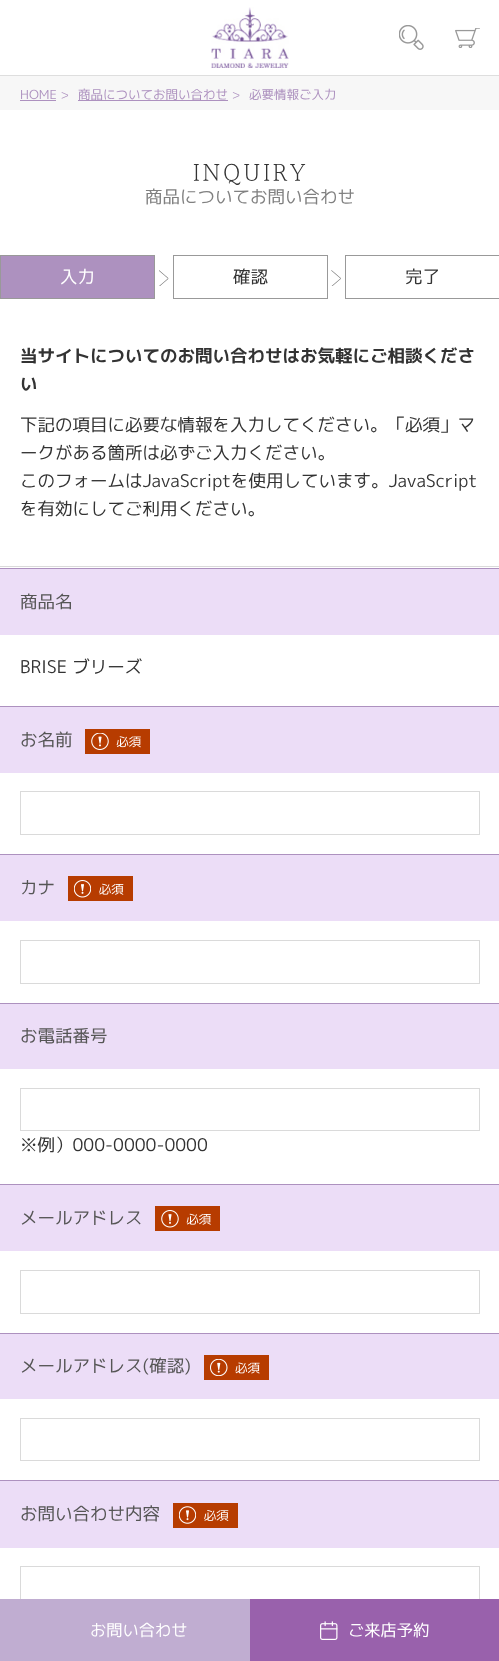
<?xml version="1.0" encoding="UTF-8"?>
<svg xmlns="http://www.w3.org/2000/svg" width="499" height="1661">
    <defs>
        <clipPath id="clip1"><rect x="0" y="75" width="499" height="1"/></clipPath>
        <filter id="blur1" x="-50%" y="-200%" width="200%" height="500%"><feGaussianBlur stdDeviation="0.5"/></filter>
    </defs>
    <rect width="100%" height="100%" fill="#FFFFFF"/>
    <rect x="0" y="75" width="499" height="35" fill="#F7F7F7"/>
    <g clip-path="url(#clip1)">
        <rect x="0" y="1" width="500" height="75" fill="#000000" fill-opacity="0.1" filter="url(#blur1)"/>
    </g>
    <image x="211" y="7" width="78" height="61" href="img_01.png"/>
    <image x="399" y="25" width="25" height="25" href="img_02.png"/>
    <image x="455" y="28" width="25" height="20" href="img_03.png"/>
    <text x="20" y="99" font-family="'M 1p'" font-size="12.5" fill="#AD91BF">HOME &gt;</text>
    <rect x="20" y="100" width="36" height="1" fill="#AD91BF"/>
    <rect x="78" y="100" width="150" height="1" fill="#AD91BF"/>
    <text x="78" y="99" font-family="'M 1p'" font-size="12.5" fill="#AD91BF">商品についてお問い合わせ &gt;</text>
    <text x="249" y="99" font-family="'M 1p'" font-size="12.5" fill="#AD91BF">必要情報ご入力</text>
    <text x="193" y="182" font-family="Halant" font-size="27.5" font-weight="300" letter-spacing="2.75" fill="#333333">INQUIRY</text>
    <text x="145" y="203" font-family="'M 1p'" font-size="17.5" fill="#808080">商品についてお問い合わせ</text>
    <rect x="0.5" y="255.5" width="154" height="43" fill="#AD91BF" stroke="#999999"/>
    <text x="60" y="283" font-family="'M 1p'" font-size="17.5" fill="#FFFFFF">入力</text>
    <image x="159" y="270" width="10" height="16" href="img_04.png"/>
    <rect x="173.5" y="255.5" width="154" height="43" fill="none" stroke="#999999"/>
    <text x="233" y="283" font-family="'M 1p'" font-size="17.5" fill="#333333">確認</text>
    <image x="331" y="270" width="10" height="16" href="img_05.png"/>
    <rect x="345.5" y="255.5" width="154" height="43" fill="none" stroke="#999999"/>
    <text x="405" y="283" font-family="'M 1p'" font-size="17.5" fill="#333333">完了</text>
    <text font-family="'M 1p'" font-size="17.5" font-weight="700" fill="#333333">
        <tspan x="20" y="362">当サイトについてのお問い合わせはお気軽にご相談くださ</tspan>
        <tspan x="20" y="390">い</tspan>
    </text>
    <text font-family="'M 1p'" font-size="17.5" fill="#333333">
        <tspan x="20" y="431">下記の項目に必要な情報を入力してください。「必須」マ</tspan>
        <tspan x="20" y="459">ークがある箇所は必ずご入力ください。</tspan>
        <tspan x="20" y="487">このフォームはJavaScriptを使用しています。JavaScript</tspan>
        <tspan x="20" y="515">を有効にしてご利用ください。</tspan>
    </text>
    <rect x="0" y="566" width="499" height="1" fill="#DADADA"/>
    <rect x="0" y="569" width="499" height="66" fill="#ECDDF7"/>
    <rect x="0" y="568" width="499" height="1" fill="#AD91BF"/>
    <text x="20" y="608" font-family="'M 1p'" font-size="17.5" fill="#555555">商品名</text>
    <text x="20" y="673" font-family="'M 1p'" font-size="17.5" fill="#333333">BRISE ブリーズ</text>
    <rect x="0" y="707" width="499" height="66" fill="#ECDDF7"/>
    <rect x="0" y="706" width="499" height="1" fill="#AD91BF"/>
    <text x="20" y="746" font-family="'M 1p'" font-size="17.5" fill="#555555">お名前</text>
    <rect x="85" y="729" width="65" height="25" fill="#B73C00"/>
    <image x="91" y="733" width="18" height="17" href="img_06.png"/>
    <image x="116" y="736" width="25" height="12" href="img_07.png"/>
    <rect x="20.5" y="791.5" width="459" height="43" fill="none" stroke="#DADADA"/>
    <rect x="0" y="855" width="499" height="66" fill="#ECDDF7"/>
    <rect x="0" y="854" width="499" height="1" fill="#AD91BF"/>
    <text x="20" y="894" font-family="'M 1p'" font-size="17.5" fill="#555555">カナ</text>
    <rect x="68" y="876" width="65" height="25" fill="#B73C00"/>
    <image x="74" y="880" width="17" height="18" href="img_08.png"/>
    <image x="99" y="883" width="25" height="12" href="img_09.png"/>
    <rect x="20.5" y="940.5" width="459" height="43" fill="none" stroke="#DADADA"/>
    <rect x="0" y="1004" width="499" height="65" fill="#ECDDF7"/>
    <rect x="0" y="1003" width="499" height="1" fill="#AD91BF"/>
    <text x="20" y="1042" font-family="'M 1p'" font-size="17.5" fill="#555555">お電話番号</text>
    <rect x="20.5" y="1088.5" width="459" height="42" fill="none" stroke="#DADADA"/>
    <text x="20" y="1151" font-family="'M 1p'" font-size="17.5" fill="#333333">※例）000-0000-0000</text>
    <rect x="0" y="1185" width="499" height="66" fill="#ECDDF7"/>
    <rect x="0" y="1184" width="499" height="1" fill="#AD91BF"/>
    <text x="20" y="1224" font-family="'M 1p'" font-size="17.5" fill="#555555">メールアドレス</text>
    <rect x="155" y="1206" width="65" height="25" fill="#B73C00"/>
    <image x="161" y="1210" width="18" height="18" href="img_10.png"/>
    <image x="186" y="1213" width="25" height="12" href="img_11.png"/>
    <rect x="20.5" y="1270.5" width="459" height="43" fill="none" stroke="#DADADA"/>
    <rect x="0" y="1334" width="499" height="65" fill="#ECDDF7"/>
    <rect x="0" y="1333" width="499" height="1" fill="#AD91BF"/>
    <text x="20" y="1372" font-family="'M 1p'" font-size="17.5" fill="#555555">メールアドレス(確認)</text>
    <rect x="204" y="1355" width="65" height="25" fill="#B73C00"/>
    <image x="210" y="1359" width="18" height="17" href="img_12.png"/>
    <image x="235" y="1362" width="25" height="12" href="img_13.png"/>
    <rect x="20.5" y="1418.5" width="459" height="42" fill="none" stroke="#DADADA"/>
    <rect x="0" y="1481" width="499" height="67" fill="#ECDDF7"/>
    <rect x="0" y="1480" width="499" height="1" fill="#AD91BF"/>
    <text x="20" y="1520" font-family="'M 1p'" font-size="17.5" fill="#555555">お問い合わせ内容</text>
    <rect x="173" y="1503" width="65" height="25" fill="#B73C00"/>
    <image x="179" y="1506" width="17" height="18" href="img_14.png"/>
    <image x="204" y="1510" width="25" height="11" href="img_15.png"/>
    <rect x="20.5" y="1566.5" width="459" height="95" fill="none" stroke="#DADADA"/>
    <rect x="0" y="1599" width="250" height="62" fill="#C0ADD1"/>
    <text x="90" y="1636" font-family="'M 1p'" font-size="16.25" fill="#FFFFFF">お問い合わせ</text>
    <rect x="250" y="1599" width="249" height="62" fill="#9961AC"/>
    <image x="320" y="1621" width="18" height="19" href="img_16.png"/>
    <text x="348" y="1636" font-family="'M 1p'" font-size="16.25" fill="#FFFFFF">ご来店予約</text>
</svg>
